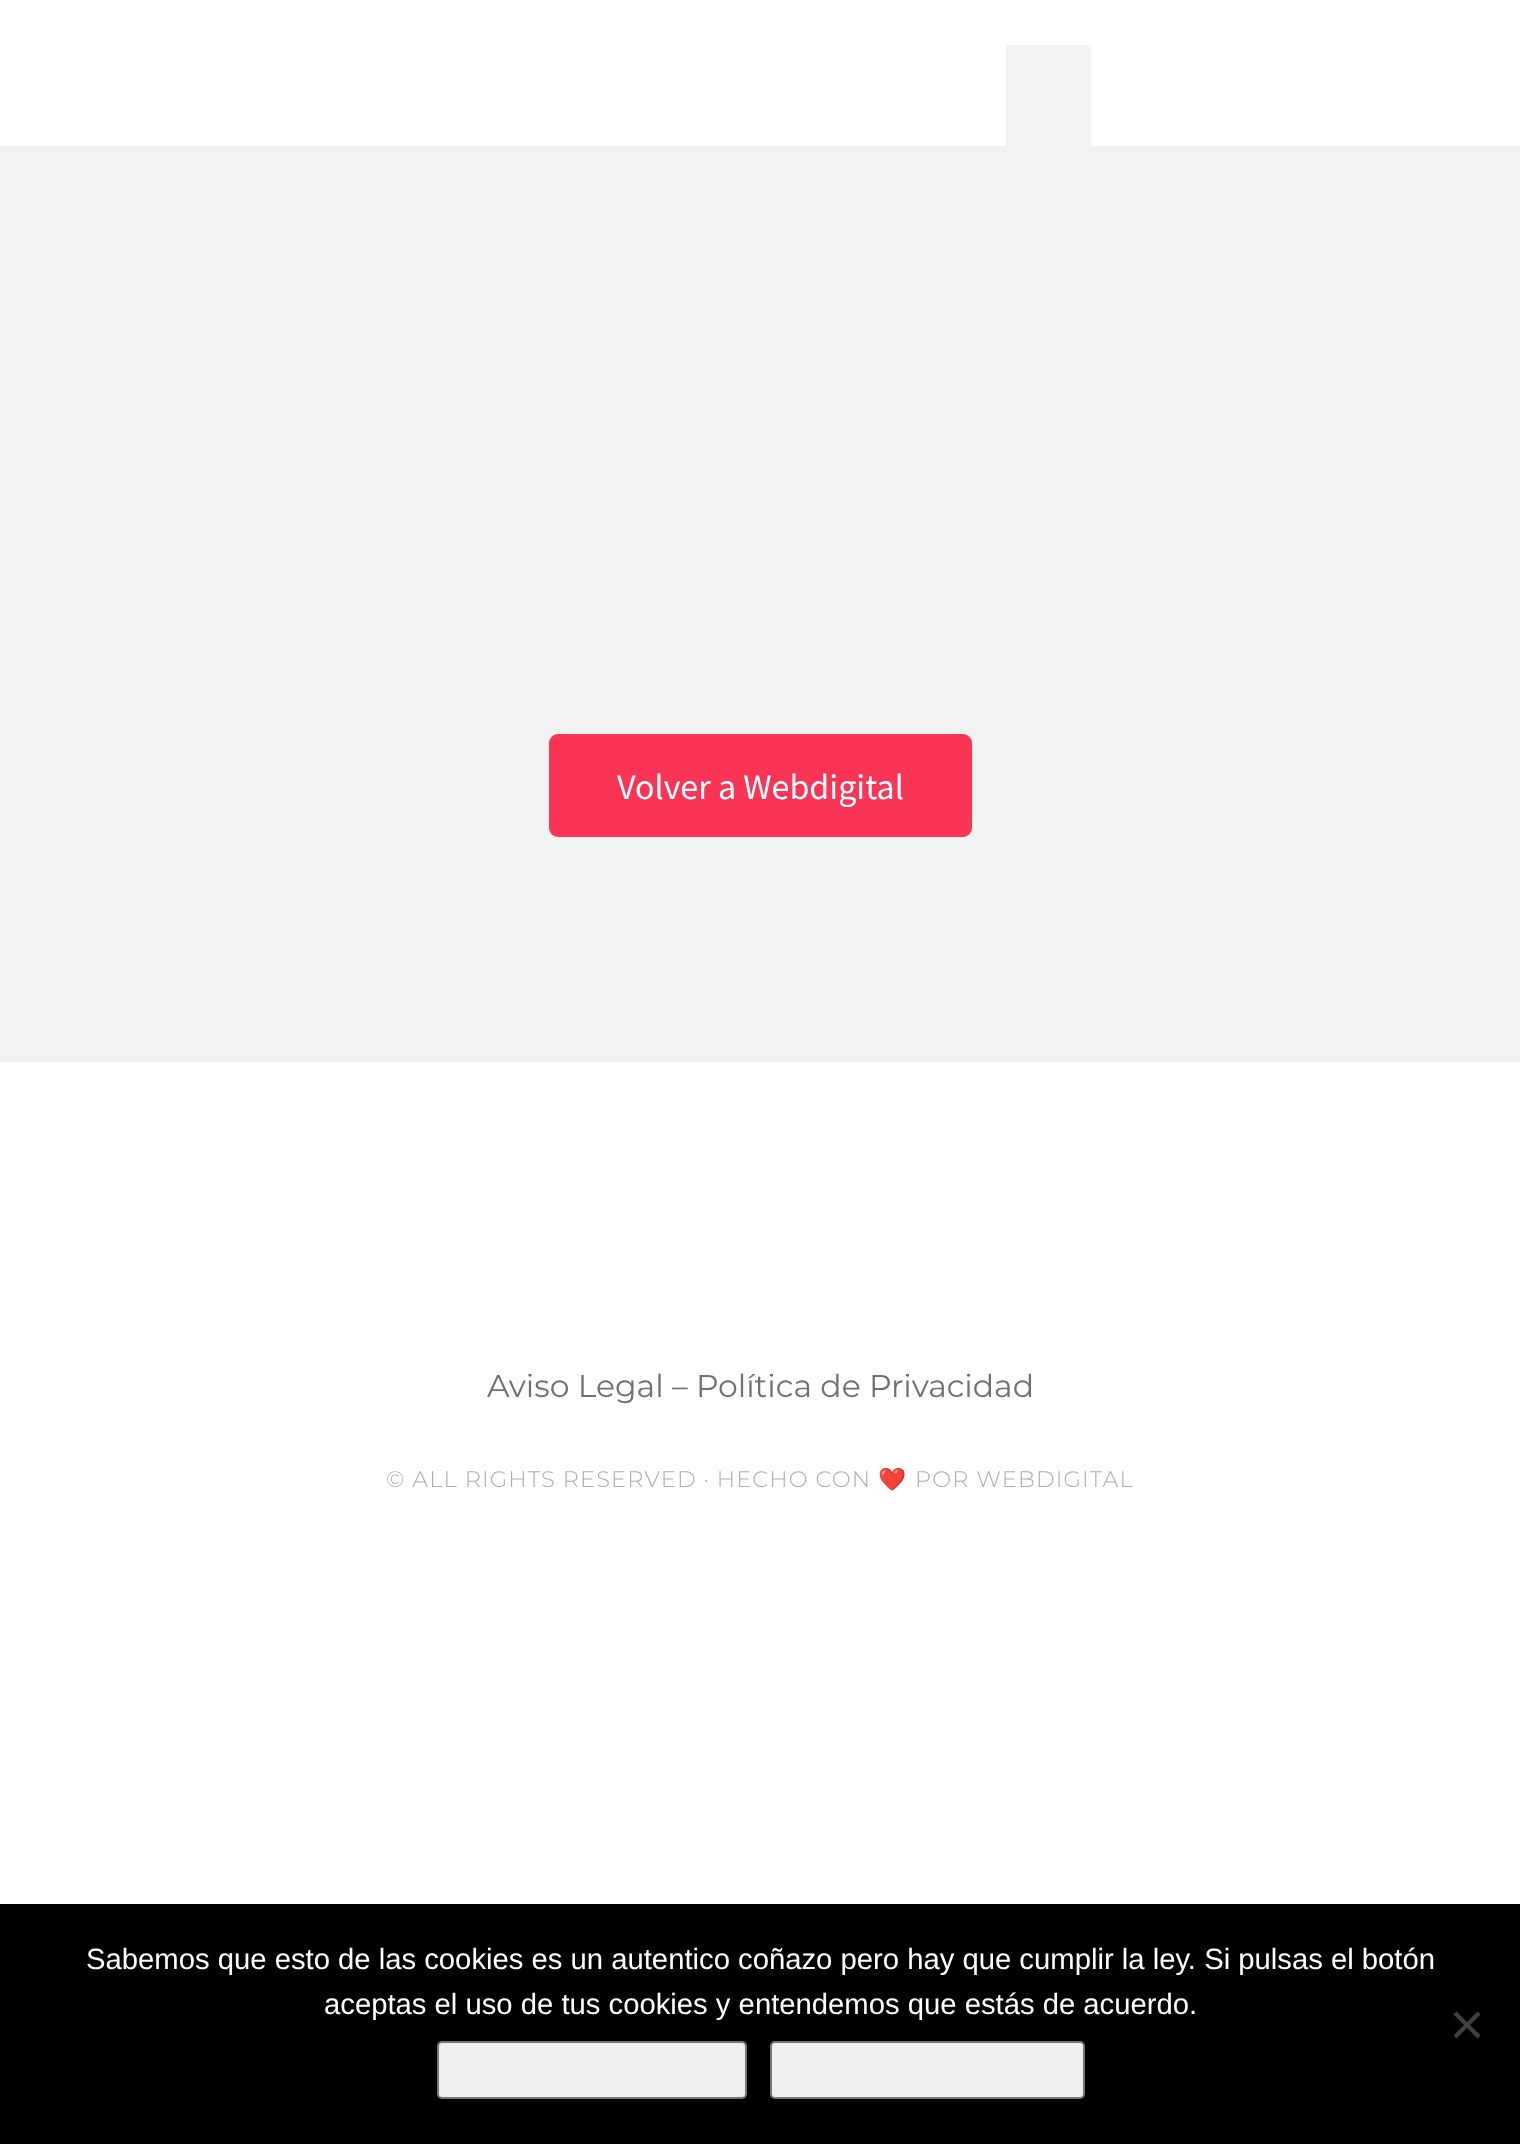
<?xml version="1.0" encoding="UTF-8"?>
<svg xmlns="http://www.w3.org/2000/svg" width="1520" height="2144">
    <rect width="100%" height="100%" fill="#FFFFFF"/>
    <rect x="1006" y="45" width="85" height="101" fill="#F2F2F2"/>
    <rect x="0" y="146" width="1520" height="916" fill="#F0F3F2"/>
    <rect x="549" y="734" width="423" height="103" rx="9" fill="#F93455"/>
    <text x="617" y="799" font-family="Source Sans Pro" font-size="36" fill="#FFFFFF">Volver a Webdigital</text>
    <text x="487" y="1397" font-family="Montserrat" font-size="31.5" fill="#726F6F">Aviso Legal – Política de Privacidad</text>
    <text x="386" y="1487" font-family="Montserrat" font-size="22.5" font-weight="300" letter-spacing="1.1" fill="#ADADAD">© ALL RIGHTS RESERVED · HECHO CON</text>
    <text x="878" y="1487" font-family="Noto Color Emoji" font-size="22.5" letter-spacing="1.1" fill="#ADADAD">❤️</text>
    <text x="915" y="1487" font-family="Montserrat" font-size="22.5" font-weight="300" letter-spacing="1.1" fill="#ADADAD">POR WEBDIGITAL</text>
    <rect x="0" y="1904" width="1520" height="240" fill="#000000"/>
    <text x="86" y="1969" font-family="Liberation Sans" font-size="29.25" fill="#FFFFFF">Sabemos que esto de las cookies es un autentico coñazo pero hay que cumplir la ley. Si pulsas el botón</text>
    <text x="324" y="2014" font-family="Liberation Sans" font-size="29.25" fill="#FFFFFF">aceptas el uso de tus cookies y entendemos que estás de acuerdo.</text>
    <path d="M 1477.5 2011.5 L 1480.5 2014.5 L 1456.5 2038.5 L 1453.5 2035.5 Z" fill="#404040"/>
    <path d="M 1453.5 2014.5 L 1456.5 2011.5 L 1480.5 2035.5 L 1477.5 2038.5 Z" fill="#404040"/>
    <rect x="438" y="2042" width="308" height="56" rx="4" fill="#EFEFEF" stroke="#767676" stroke-width="2"/>
    <rect x="771" y="2042" width="313" height="56" rx="4" fill="#EFEFEF" stroke="#767676" stroke-width="2"/>
</svg>
